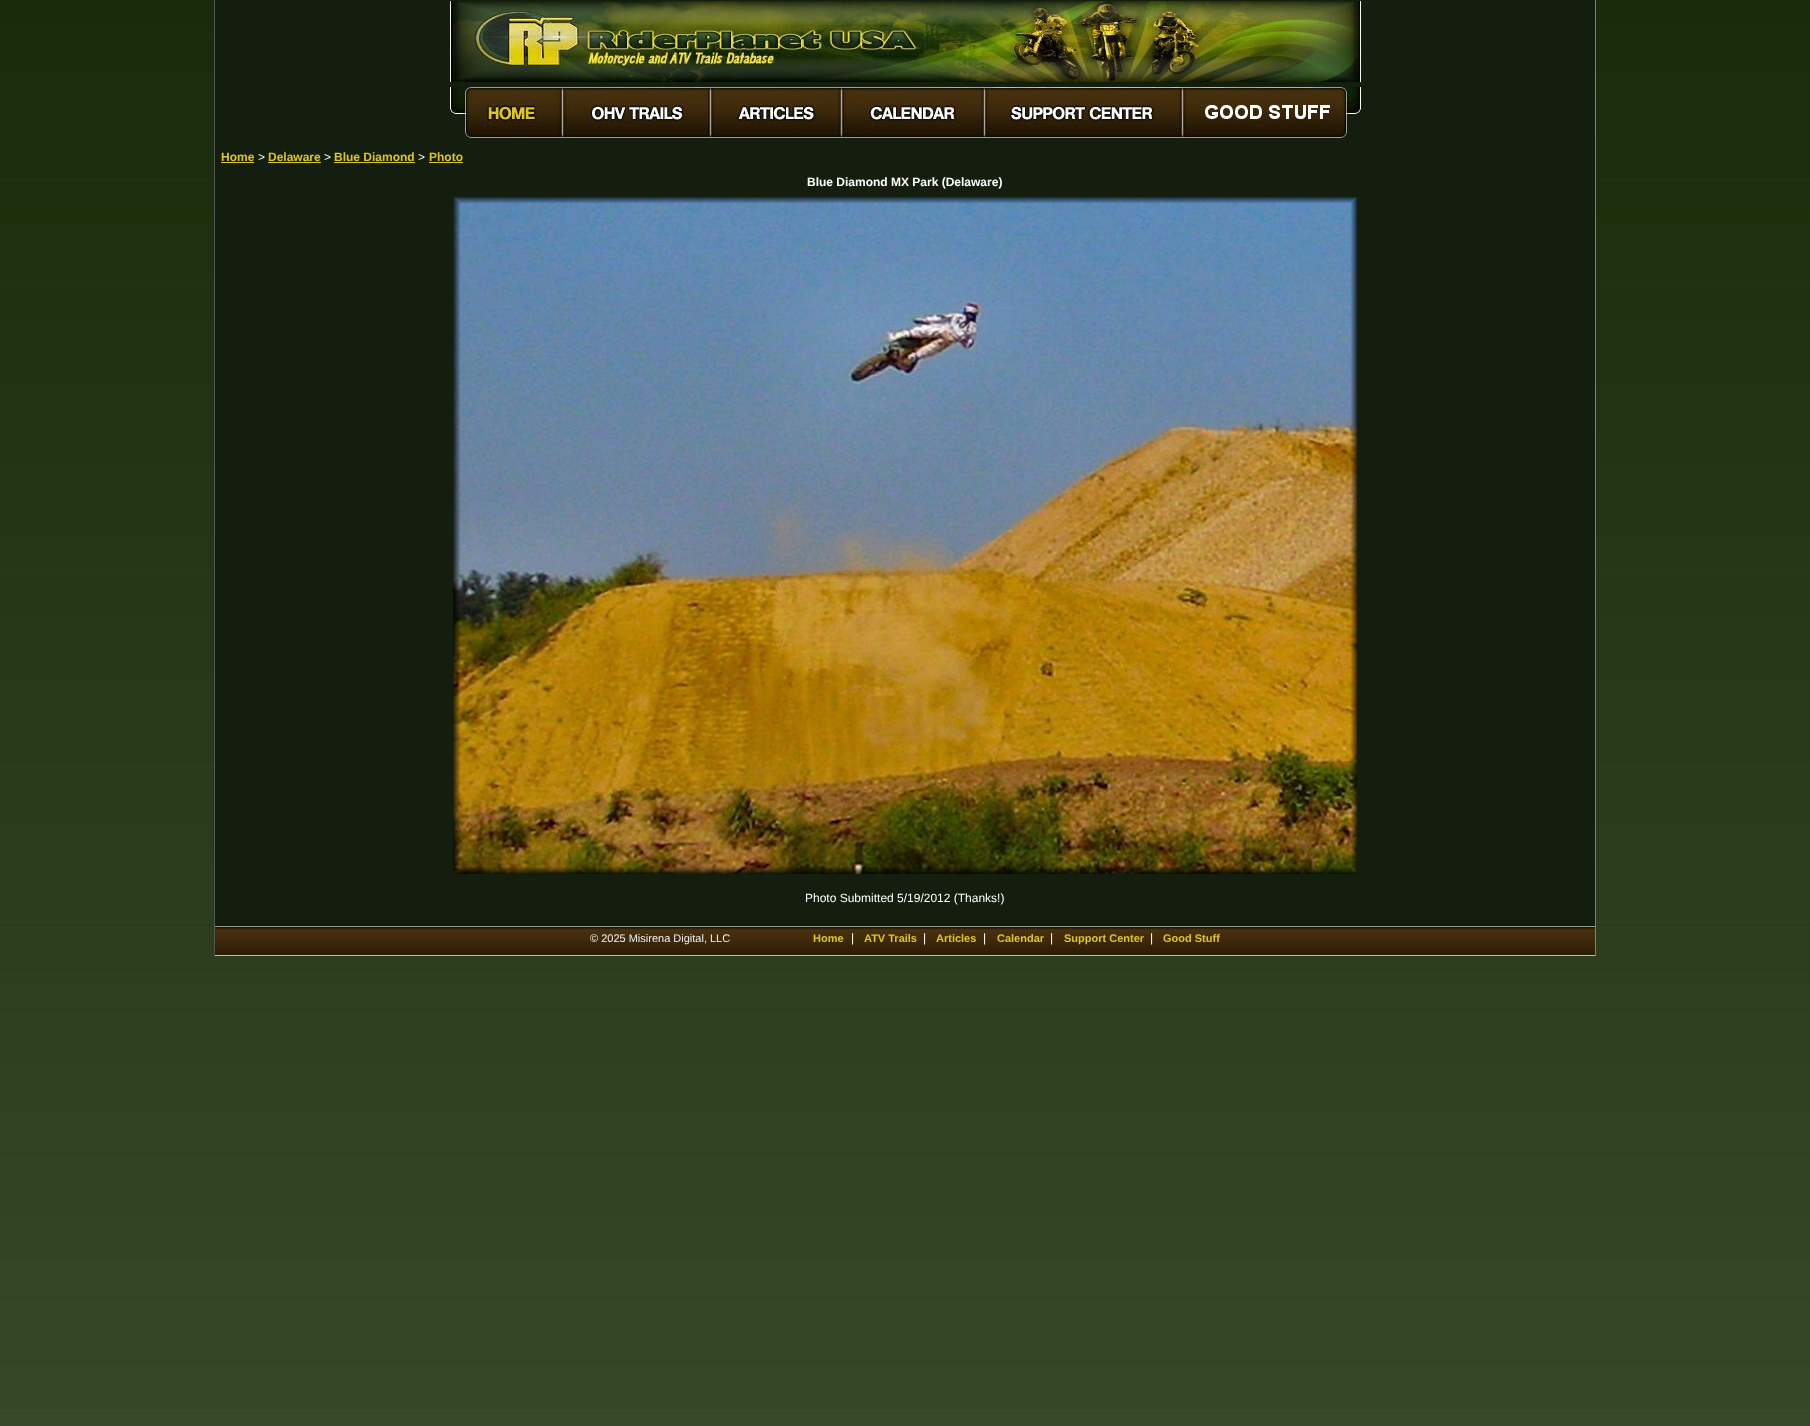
<?xml version="1.0" encoding="UTF-8"?>
<svg xmlns="http://www.w3.org/2000/svg" width="1810" height="1426">
    <rect width="100%" height="100%" fill="#FFFFFF"/>
    <image x="0" y="0" width="1810" height="1426" href="img_01.png"/>
    <rect x="215" y="0" width="1380" height="925" fill="#131E0E"/>
    <rect x="1595" y="0" width="1" height="956" fill="#808080"/>
    <rect x="214" y="0" width="1" height="956" fill="#555555"/>
    <image x="450" y="1" width="911" height="81" href="img_02.png"/>
    <image x="450" y="87" width="15" height="27" href="img_03.png"/>
    <image x="465" y="87" width="98" height="51" href="img_04.png"/>
    <image x="563" y="87" width="148" height="51" href="img_05.png"/>
    <image x="711" y="87" width="131" height="51" href="img_06.png"/>
    <image x="842" y="87" width="143" height="51" href="img_07.png"/>
    <image x="985" y="87" width="198" height="51" href="img_08.png"/>
    <image x="1183" y="87" width="164" height="51" href="img_09.png"/>
    <image x="1347" y="87" width="14" height="27" href="img_10.png"/>
    <text x="221" y="161" font-family="Liberation Sans" font-size="12" font-weight="700" fill="#DFC61E">Home</text>
    <rect x="221" y="162" width="33" height="1" fill="#DFC61E"/>
    <text x="258" y="161" font-family="Liberation Sans" font-size="12" fill="#FFFFFF">&gt;</text>
    <text x="268" y="161" font-family="Liberation Sans" font-size="12" font-weight="700" fill="#DFC61E">Delaware</text>
    <rect x="268" y="162" width="53" height="1" fill="#DFC61E"/>
    <text x="324" y="161" font-family="Liberation Sans" font-size="12" fill="#FFFFFF">&gt;</text>
    <text x="334" y="161" font-family="Liberation Sans" font-size="12" font-weight="700" fill="#DFC61E">Blue Diamond</text>
    <rect x="334" y="162" width="81" height="1" fill="#DFC61E"/>
    <text x="418" y="161" font-family="Liberation Sans" font-size="12" fill="#FFFFFF">&gt;</text>
    <text x="429" y="161" font-family="Liberation Sans" font-size="12" font-weight="700" fill="#DFC61E">Photo</text>
    <rect x="429" y="162" width="34" height="1" fill="#DFC61E"/>
    <text x="807" y="186" font-family="Liberation Sans" font-size="12" font-weight="700" fill="#FFFFFF">Blue Diamond MX Park (Delaware)</text>
    <image x="453" y="197" width="904" height="677" href="img_11.png"/>
    <text x="805" y="902" font-family="Liberation Sans" font-size="12" fill="#FFFFFF">Photo Submitted 5/19/2012 (Thanks!)</text>
    <image x="215" y="925" width="1380" height="30" href="img_12.png"/>
    <rect x="215" y="955" width="1380" height="1" fill="#C0C0C0"/>
    <text x="590" y="942" font-family="Liberation Sans" font-size="11" fill="#F0F0F0">© 2025 Misirena Digital, LLC</text>
    <text x="813" y="942" font-family="Liberation Sans" font-size="11" font-weight="700" fill="#DFC61E">Home</text>
    <text x="851" y="942" font-family="Liberation Sans" font-size="12" fill="#FFFFFF">|</text>
    <text x="864" y="942" font-family="Liberation Sans" font-size="11" font-weight="700" fill="#DFC61E">ATV Trails</text>
    <text x="923" y="942" font-family="Liberation Sans" font-size="12" fill="#FFFFFF">|</text>
    <text x="936" y="942" font-family="Liberation Sans" font-size="11" font-weight="700" fill="#DFC61E">Articles</text>
    <text x="983" y="942" font-family="Liberation Sans" font-size="12" fill="#FFFFFF">|</text>
    <text x="997" y="942" font-family="Liberation Sans" font-size="11" font-weight="700" fill="#DFC61E">Calendar</text>
    <text x="1050" y="942" font-family="Liberation Sans" font-size="12" fill="#FFFFFF">|</text>
    <text x="1064" y="942" font-family="Liberation Sans" font-size="11" font-weight="700" fill="#DFC61E">Support Center</text>
    <text x="1150" y="942" font-family="Liberation Sans" font-size="12" fill="#FFFFFF">|</text>
    <text x="1163" y="942" font-family="Liberation Sans" font-size="11" font-weight="700" fill="#DFC61E">Good Stuff</text>
</svg>
